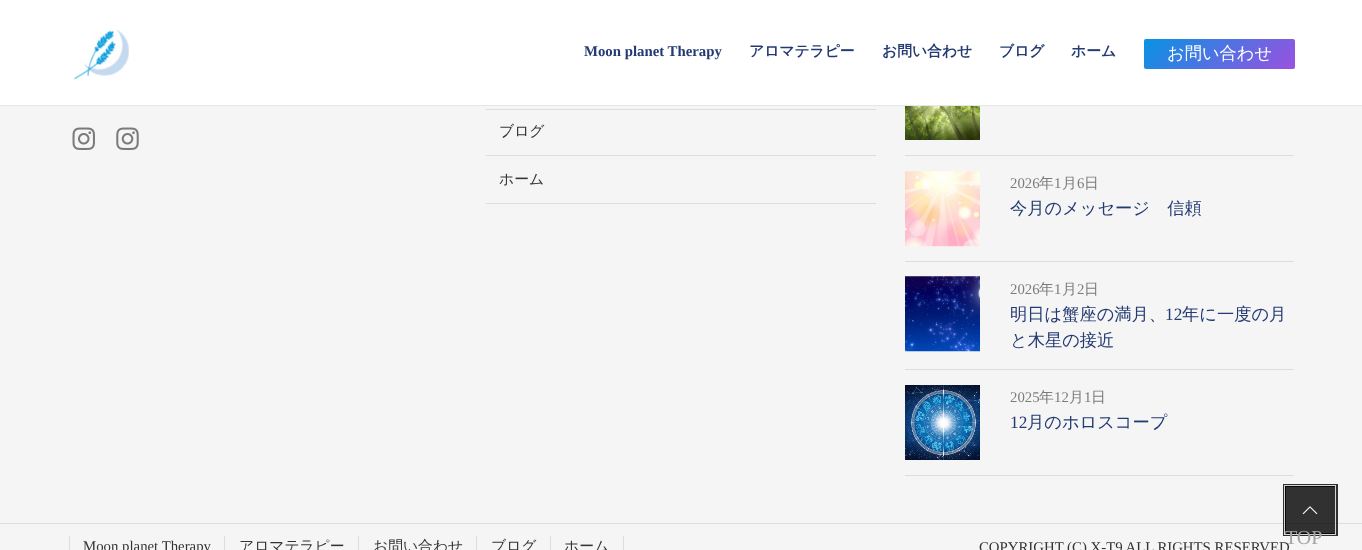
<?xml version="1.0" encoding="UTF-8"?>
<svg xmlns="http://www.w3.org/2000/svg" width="1362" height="550">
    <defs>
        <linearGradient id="g1" gradientUnits="userSpaceOnUse" x1="1174" y1="8" x2="1265" y2="99"><stop offset="0" stop-color="#0693E3"/><stop offset="1" stop-color="#9B51E0"/></linearGradient>
    </defs>
    <rect width="100%" height="100%" fill="#F5F5F5"/>
    <rect x="0" y="0" width="1362" height="105" fill="#FFFFFF"/>
    <image x="74" y="29" width="55" height="51" href="img_01.png"/>
    <text x="584" y="56" font-family="Liberation Serif" font-size="14.8" font-weight="700" fill="#233A73">Moon planet Therapy</text>
    <text x="749" y="56" font-family="WenQuanYi Zen Hei" font-size="14.8" font-weight="700" fill="#233A73">アロマテラピー</text>
    <text x="882" y="56" font-family="WenQuanYi Zen Hei" font-size="14.8" font-weight="700" fill="#233A73">お問い合わせ</text>
    <text x="999" y="56" font-family="WenQuanYi Zen Hei" font-size="14.8" font-weight="700" fill="#233A73">ブログ</text>
    <text x="1071" y="56" font-family="WenQuanYi Zen Hei" font-size="14.8" font-weight="700" fill="#233A73">ホーム</text>
    <rect x="1144" y="39" width="151" height="30" rx="2" fill="url(#g1)"/>
    <text x="1167" y="59" font-family="WenQuanYi Zen Hei" font-size="17.25" font-weight="500" fill="#FFFFFF">お問い合わせ</text>
    <rect x="0" y="105" width="1362" height="1" fill="#E6E6E6"/>
    <image x="72" y="127" width="23" height="23" href="img_02.png"/>
    <image x="116" y="127" width="23" height="23" href="img_03.png"/>
    <rect x="486" y="109" width="390" height="1" fill="#DDDDDD"/>
    <rect x="486" y="155" width="390" height="1" fill="#DDDDDD"/>
    <text x="499" y="136" font-family="WenQuanYi Zen Hei" font-size="14.8" font-weight="500" fill="#333333">ブログ</text>
    <rect x="486" y="203" width="390" height="1" fill="#DDDDDD"/>
    <text x="499" y="184" font-family="WenQuanYi Zen Hei" font-size="14.8" font-weight="500" fill="#333333">ホーム</text>
    <image x="905" y="106" width="75" height="34" href="img_04.png"/>
    <rect x="905" y="155" width="389" height="1" fill="#DDDDDD"/>
    <image x="905" y="171" width="75" height="76" href="img_05.png"/>
    <text x="1010" y="188" font-family="Liberation Serif" font-size="14.8" fill="#7B7B7B">2026</text>
    <text x="1039" y="188" font-family="WenQuanYi Zen Hei" font-size="14.8" font-weight="500" fill="#7B7B7B">年</text>
    <text x="1054" y="188" font-family="Liberation Serif" font-size="14.8" fill="#7B7B7B">1</text>
    <text x="1062" y="188" font-family="WenQuanYi Zen Hei" font-size="14.8" font-weight="500" fill="#7B7B7B">月</text>
    <text x="1077" y="188" font-family="Liberation Serif" font-size="14.8" fill="#7B7B7B">6</text>
    <text x="1084" y="188" font-family="WenQuanYi Zen Hei" font-size="14.8" font-weight="500" fill="#7B7B7B">日</text>
    <text x="1010" y="214" font-family="WenQuanYi Zen Hei" font-size="17.25" font-weight="500" fill="#233A73">今月のメッセージ　信頼</text>
    <rect x="905" y="261" width="389" height="1" fill="#DDDDDD"/>
    <image x="905" y="276" width="75" height="76" href="img_06.png"/>
    <text x="1010" y="294" font-family="Liberation Serif" font-size="14.8" fill="#7B7B7B">2026</text>
    <text x="1039" y="294" font-family="WenQuanYi Zen Hei" font-size="14.8" font-weight="500" fill="#7B7B7B">年</text>
    <text x="1054" y="294" font-family="Liberation Serif" font-size="14.8" fill="#7B7B7B">1</text>
    <text x="1062" y="294" font-family="WenQuanYi Zen Hei" font-size="14.8" font-weight="500" fill="#7B7B7B">月</text>
    <text x="1077" y="294" font-family="Liberation Serif" font-size="14.8" fill="#7B7B7B">2</text>
    <text x="1084" y="294" font-family="WenQuanYi Zen Hei" font-size="14.8" font-weight="500" fill="#7B7B7B">日</text>
    <text x="1010" y="320" font-family="WenQuanYi Zen Hei" font-size="17.25" font-weight="500" fill="#233A73">明日は蟹座の満月、</text>
    <text x="1165" y="320" font-family="Liberation Serif" font-size="17.25" fill="#233A73">12</text>
    <text x="1182" y="320" font-family="WenQuanYi Zen Hei" font-size="17.25" font-weight="500" fill="#233A73">年に一度の月</text>
    <text x="1010" y="346" font-family="WenQuanYi Zen Hei" font-size="17.25" font-weight="500" fill="#233A73">と木星の接近</text>
    <rect x="905" y="369" width="389" height="1" fill="#DDDDDD"/>
    <image x="905" y="385" width="75" height="75" href="img_07.png"/>
    <text x="1010" y="402" font-family="Liberation Serif" font-size="14.8" fill="#7B7B7B">2025</text>
    <text x="1039" y="402" font-family="WenQuanYi Zen Hei" font-size="14.8" font-weight="500" fill="#7B7B7B">年</text>
    <text x="1054" y="402" font-family="Liberation Serif" font-size="14.8" fill="#7B7B7B">12</text>
    <text x="1069" y="402" font-family="WenQuanYi Zen Hei" font-size="14.8" font-weight="500" fill="#7B7B7B">月</text>
    <text x="1084" y="402" font-family="Liberation Serif" font-size="14.8" fill="#7B7B7B">1</text>
    <text x="1091" y="402" font-family="WenQuanYi Zen Hei" font-size="14.8" font-weight="500" fill="#7B7B7B">日</text>
    <text x="1010" y="428" font-family="Liberation Serif" font-size="17.25" fill="#233A73">12</text>
    <text x="1027" y="428" font-family="WenQuanYi Zen Hei" font-size="17.25" font-weight="500" fill="#233A73">月のホロスコープ</text>
    <rect x="905" y="475" width="389" height="1" fill="#DDDDDD"/>
    <rect x="0" y="523" width="1362" height="1" fill="#DDDDDD"/>
    <rect x="69" y="536" width="1" height="14" fill="#DDDDDD"/>
    <text x="83" y="551" font-family="Liberation Serif" font-size="14.8" fill="#333333">Moon planet Therapy</text>
    <rect x="224" y="536" width="1" height="14" fill="#DDDDDD"/>
    <text x="239" y="551" font-family="WenQuanYi Zen Hei" font-size="14.8" font-weight="500" fill="#333333">アロマテラピー</text>
    <rect x="358" y="536" width="1" height="14" fill="#DDDDDD"/>
    <text x="373" y="551" font-family="WenQuanYi Zen Hei" font-size="14.8" font-weight="500" fill="#333333">お問い合わせ</text>
    <rect x="476" y="536" width="1" height="14" fill="#DDDDDD"/>
    <text x="491" y="551" font-family="WenQuanYi Zen Hei" font-size="14.8" font-weight="500" fill="#333333">ブログ</text>
    <rect x="623" y="536" width="1" height="14" fill="#DDDDDD"/>
    <rect x="550" y="536" width="1" height="14" fill="#DDDDDD"/>
    <text x="564" y="551" font-family="WenQuanYi Zen Hei" font-size="14.8" font-weight="500" fill="#333333">ホーム</text>
    <text x="979" y="552" font-family="Liberation Serif" font-size="14.8" fill="#333333">COPYRIGHT (C) X-T9 ALL RIGHTS RESERVED</text>
    <rect x="1284.5" y="485.5" width="52" height="49" fill="none" stroke="#000000" stroke-opacity="0.8" stroke-width="3"/>
    <rect x="1284.5" y="485.5" width="51" height="49" fill="none" stroke="#FFFFFF" stroke-opacity="0.8"/>
    <rect x="1285" y="486" width="50" height="48" fill="#000000" fill-opacity="0.8"/>
    <image x="1302" y="506" width="16" height="9" href="img_08.png"/>
    <text x="1285" y="544" font-family="Liberation Serif" font-size="20" fill="#A3A3A3">TOP</text>
</svg>
